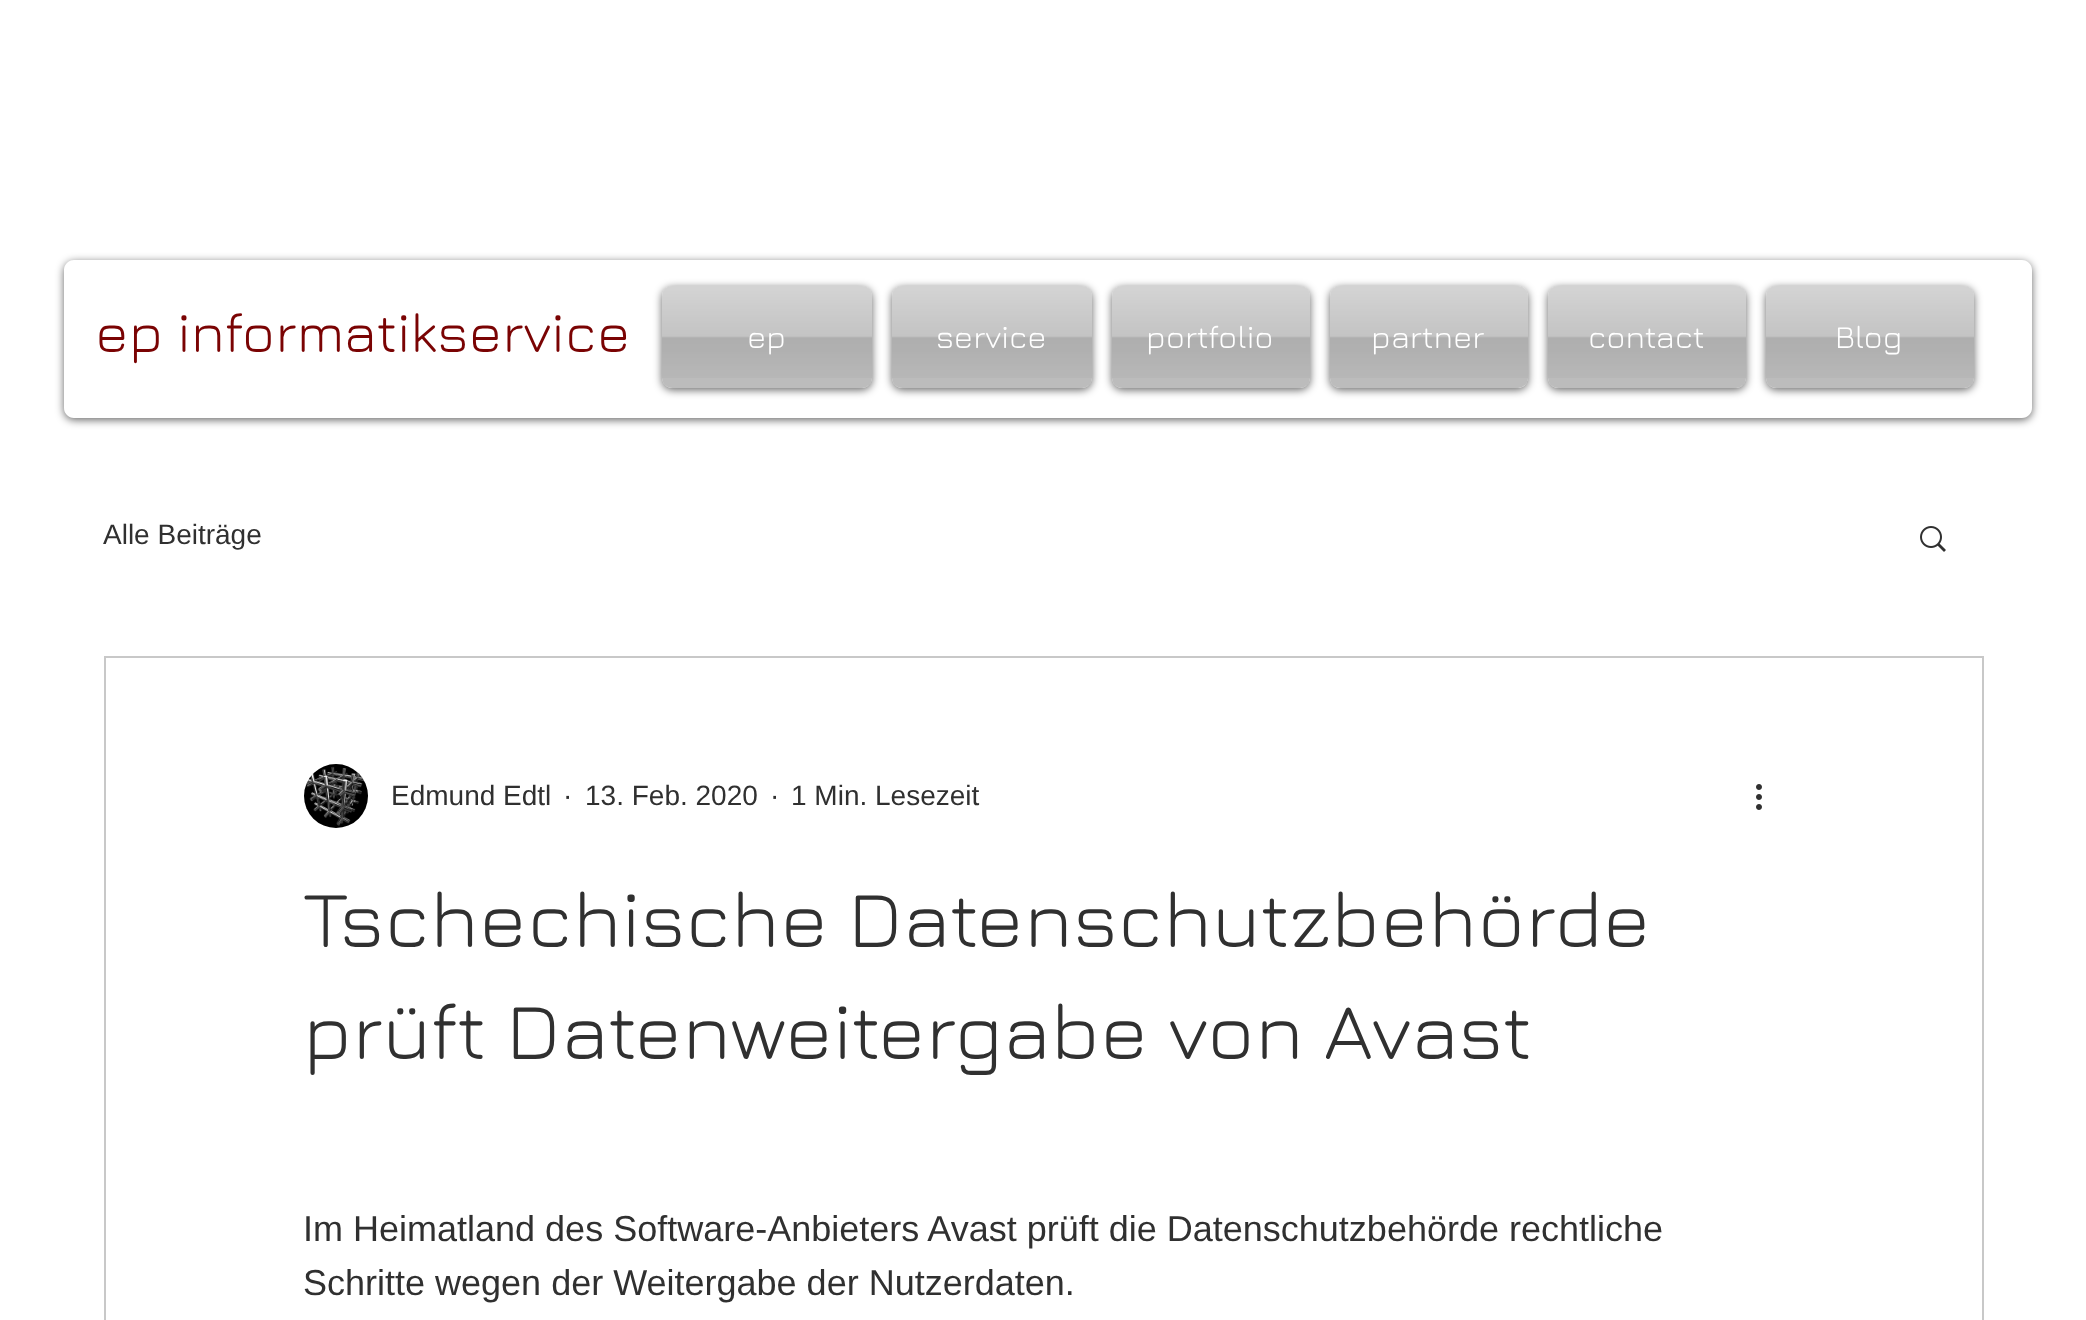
<?xml version="1.0" encoding="UTF-8"?>
<svg xmlns="http://www.w3.org/2000/svg" width="2086" height="1320">
    <defs>
        <clipPath id="clip1"><path d="M 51 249 H 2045 V 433 H 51 Z M 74 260 H 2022 C 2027.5 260 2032 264.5 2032 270 V 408 C 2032 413.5 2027.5 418 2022 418 H 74 C 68.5 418 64 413.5 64 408 V 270 C 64 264.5 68.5 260 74 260 Z" clip-rule="evenodd"/></clipPath>
        <filter id="blur1" x="-50%" y="-200%" width="200%" height="500%"><feGaussianBlur stdDeviation="4"/></filter>
        <clipPath id="clip2"><path d="M 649 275 H 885 V 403 H 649 Z M 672 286 H 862 C 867.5 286 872 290.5 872 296 V 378 C 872 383.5 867.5 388 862 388 H 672 C 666.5 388 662 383.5 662 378 V 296 C 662 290.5 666.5 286 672 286 Z" clip-rule="evenodd"/></clipPath>
        <clipPath id="clip3"><path d="M 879 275 H 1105 V 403 H 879 Z M 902 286 H 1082 C 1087.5 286 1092 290.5 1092 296 V 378 C 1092 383.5 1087.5 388 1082 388 H 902 C 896.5 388 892 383.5 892 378 V 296 C 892 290.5 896.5 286 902 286 Z" clip-rule="evenodd"/></clipPath>
        <clipPath id="clip4"><path d="M 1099 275 H 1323 V 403 H 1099 Z M 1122 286 H 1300 C 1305.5 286 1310 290.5 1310 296 V 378 C 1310 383.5 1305.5 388 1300 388 H 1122 C 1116.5 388 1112 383.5 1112 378 V 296 C 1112 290.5 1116.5 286 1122 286 Z" clip-rule="evenodd"/></clipPath>
        <clipPath id="clip5"><path d="M 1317 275 H 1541 V 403 H 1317 Z M 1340 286 H 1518 C 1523.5 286 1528 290.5 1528 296 V 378 C 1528 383.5 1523.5 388 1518 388 H 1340 C 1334.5 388 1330 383.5 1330 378 V 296 C 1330 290.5 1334.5 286 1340 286 Z" clip-rule="evenodd"/></clipPath>
        <clipPath id="clip6"><path d="M 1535 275 H 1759 V 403 H 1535 Z M 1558 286 H 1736 C 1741.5 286 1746 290.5 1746 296 V 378 C 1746 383.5 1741.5 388 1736 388 H 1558 C 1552.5 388 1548 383.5 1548 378 V 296 C 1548 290.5 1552.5 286 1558 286 Z" clip-rule="evenodd"/></clipPath>
        <clipPath id="clip7"><path d="M 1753 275 H 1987 V 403 H 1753 Z M 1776 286 H 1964 C 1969.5 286 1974 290.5 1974 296 V 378 C 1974 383.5 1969.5 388 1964 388 H 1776 C 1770.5 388 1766 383.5 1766 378 V 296 C 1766 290.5 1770.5 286 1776 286 Z" clip-rule="evenodd"/></clipPath>
    </defs>
    <rect width="100%" height="100%" fill="#FFFFFF"/>
    <g clip-path="url(#clip1)">
        <rect x="64" y="262" width="1968" height="158" rx="10" fill="#000000" fill-opacity="0.6" filter="url(#blur1)"/>
    </g>
    <rect x="65" y="261" width="1966" height="156" rx="9" fill="none" stroke="#FFFFFF" stroke-opacity="0.14" stroke-width="2"/>
    <text x="95" y="352" font-family="Jura" font-size="56" fill="#7A0303">ep informatikservice</text>
    <g clip-path="url(#clip2)">
        <rect x="662" y="288" width="210" height="102" rx="10" fill="#000000" fill-opacity="0.6" filter="url(#blur1)"/>
    </g>
    <rect x="662" y="286" width="210" height="102" rx="10" fill="#303030" fill-opacity="0.32"/>
    <image x="662" y="286" width="210" height="92" href="img_01.png"/>
    <text x="747" y="348" font-family="Jura" font-size="32" fill="#FFFFFF">ep</text>
    <g clip-path="url(#clip3)">
        <rect x="892" y="288" width="200" height="102" rx="10" fill="#000000" fill-opacity="0.6" filter="url(#blur1)"/>
    </g>
    <rect x="892" y="286" width="200" height="102" rx="10" fill="#303030" fill-opacity="0.32"/>
    <image x="892" y="286" width="200" height="92" href="img_02.png"/>
    <text x="936" y="348" font-family="Jura" font-size="32" fill="#FFFFFF">service</text>
    <g clip-path="url(#clip4)">
        <rect x="1112" y="288" width="198" height="102" rx="10" fill="#000000" fill-opacity="0.6" filter="url(#blur1)"/>
    </g>
    <rect x="1112" y="286" width="198" height="102" rx="10" fill="#303030" fill-opacity="0.32"/>
    <image x="1112" y="286" width="198" height="92" href="img_03.png"/>
    <text x="1146" y="348" font-family="Jura" font-size="32" fill="#FFFFFF">portfolio</text>
    <g clip-path="url(#clip5)">
        <rect x="1330" y="288" width="198" height="102" rx="10" fill="#000000" fill-opacity="0.6" filter="url(#blur1)"/>
    </g>
    <rect x="1330" y="286" width="198" height="102" rx="10" fill="#303030" fill-opacity="0.32"/>
    <image x="1330" y="286" width="198" height="92" href="img_04.png"/>
    <text x="1371" y="348" font-family="Jura" font-size="32" fill="#FFFFFF">partner</text>
    <g clip-path="url(#clip6)">
        <rect x="1548" y="288" width="198" height="102" rx="10" fill="#000000" fill-opacity="0.6" filter="url(#blur1)"/>
    </g>
    <rect x="1548" y="286" width="198" height="102" rx="10" fill="#303030" fill-opacity="0.32"/>
    <image x="1548" y="286" width="198" height="92" href="img_03.png"/>
    <text x="1588" y="348" font-family="Jura" font-size="32" fill="#FFFFFF">contact</text>
    <g clip-path="url(#clip7)">
        <rect x="1766" y="288" width="208" height="102" rx="10" fill="#000000" fill-opacity="0.6" filter="url(#blur1)"/>
    </g>
    <rect x="1766" y="286" width="208" height="102" rx="10" fill="#303030" fill-opacity="0.32"/>
    <image x="1766" y="286" width="208" height="92" href="img_05.png"/>
    <text x="1835" y="348" font-family="Jura" font-size="32" fill="#FFFFFF">Blog</text>
    <text x="103" y="544" font-family="Liberation Sans" font-size="28" fill="#303030">Alle Beiträge</text>
    <image x="1920" y="526" width="26" height="26" href="img_06.png"/>
    <rect x="105" y="657" width="1878" height="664" fill="none" stroke="#C8C8C8" stroke-width="2"/>
    <image x="304" y="764" width="64" height="64" href="img_07.png"/>
    <text x="391" y="805" font-family="Liberation Sans" font-size="28" fill="#303030">Edmund Edtl</text>
    <text x="563" y="805" font-family="Liberation Sans" font-size="28" fill="#303030">·</text>
    <text x="585" y="805" font-family="Liberation Sans" font-size="28" fill="#303030">13. Feb. 2020</text>
    <text x="770" y="805" font-family="Liberation Sans" font-size="28" fill="#303030">·</text>
    <text x="791" y="805" font-family="Liberation Sans" font-size="28" fill="#303030">1 Min. Lesezeit</text>
    <image x="1756" y="784" width="6" height="26" href="img_08.png"/>
    <text font-family="Jura" font-size="80" fill="#303030">
        <tspan x="303" y="947">Tschechische Datenschutzbehörde</tspan>
        <tspan x="303" y="1059">prüft Datenweitergabe von Avast</tspan>
    </text>
    <text font-family="Liberation Sans" font-size="36" fill="#303030">
        <tspan x="303" y="1241">Im Heimatland des Software-Anbieters Avast prüft die Datenschutzbehörde rechtliche</tspan>
        <tspan x="303" y="1295">Schritte wegen der Weitergabe der Nutzerdaten.</tspan>
    </text>
</svg>
